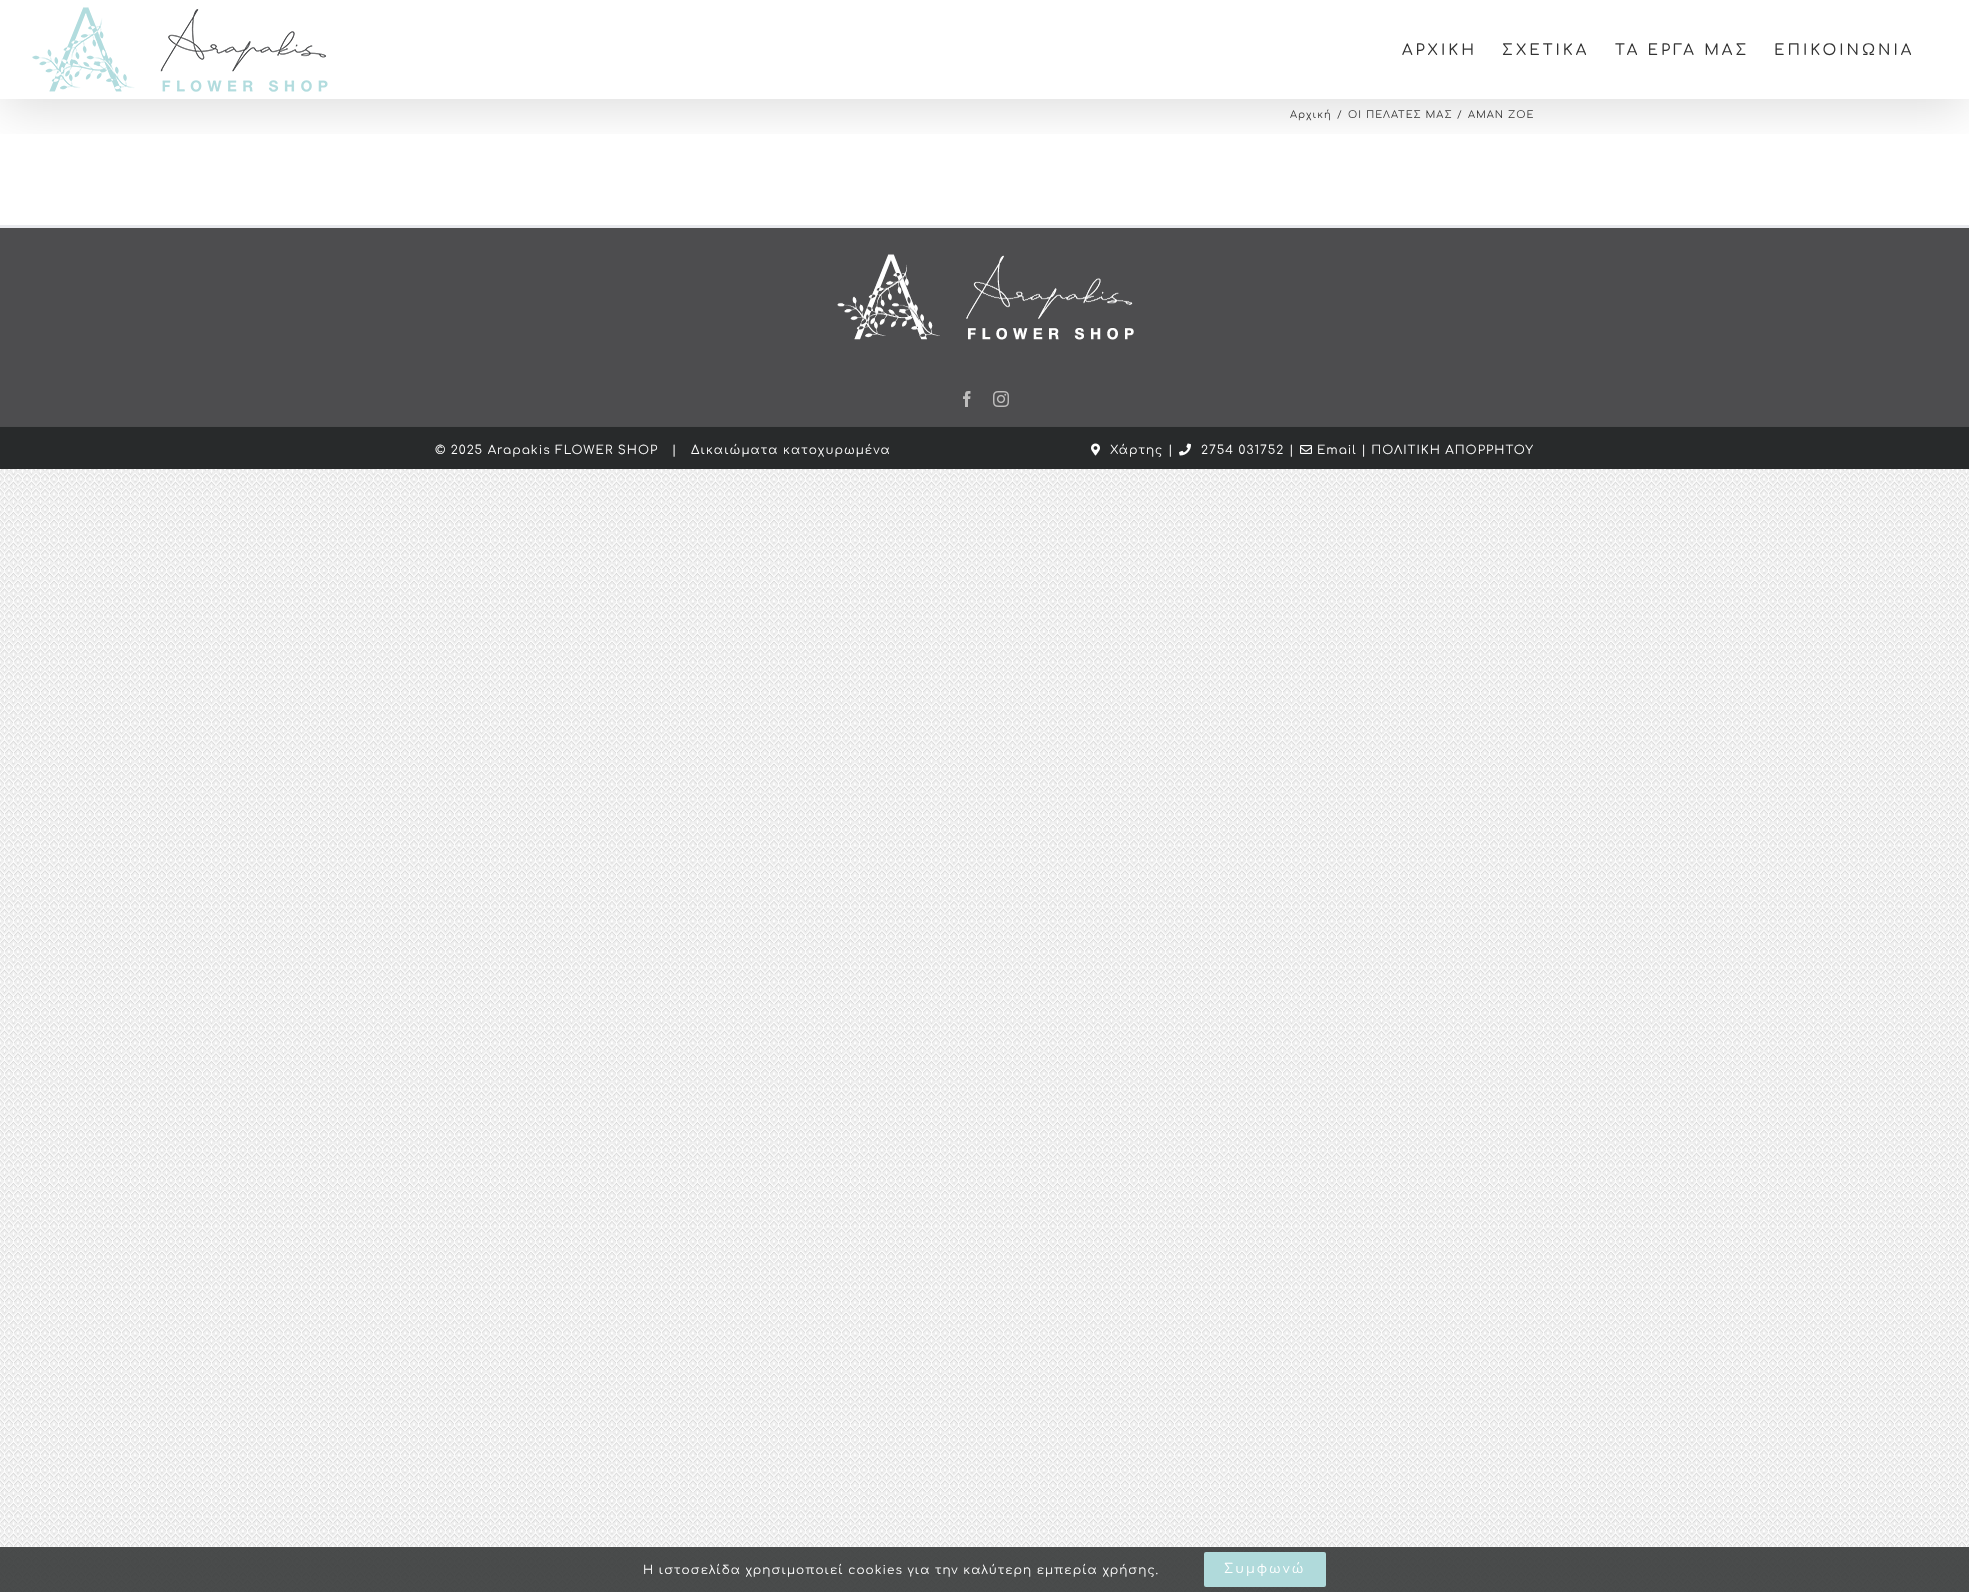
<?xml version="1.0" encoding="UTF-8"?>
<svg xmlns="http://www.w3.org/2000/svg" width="1969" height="1592">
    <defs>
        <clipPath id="clip1"><rect x="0" y="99" width="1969" height="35"/></clipPath>
        <filter id="blur1" x="-50%" y="-200%" width="200%" height="500%"><feGaussianBlur stdDeviation="25"/></filter>
    </defs>
    <rect width="100%" height="100%" fill="#FFFFFF"/>
    <image x="0" y="469" width="1969" height="1123" href="img_01.png"/>
    <g clip-path="url(#clip1)">
        <rect x="2" y="12" width="1965" height="95" fill="#000000" fill-opacity="0.14" filter="url(#blur1)"/>
    </g>
    <image x="32" y="7" width="296" height="85" href="img_02.png"/>
    <text x="1402" y="55" font-family="Comfortaa" font-size="15" font-weight="500" letter-spacing="3" fill="#333333">ΑΡΧΙΚΗ</text>
    <text x="1502" y="55" font-family="Comfortaa" font-size="15" font-weight="500" letter-spacing="3" fill="#333333">ΣΧΕΤΙΚΑ</text>
    <text x="1615" y="55" font-family="Comfortaa" font-size="15" font-weight="500" letter-spacing="3" fill="#333333">ΤΑ ΕΡΓΑ ΜΑΣ</text>
    <text x="1774" y="55" font-family="Comfortaa" font-size="15" font-weight="500" letter-spacing="3" fill="#333333">ΕΠΙΚΟΙΝΩΝΙΑ</text>
    <text x="1290" y="118" font-family="Comfortaa" font-size="10" letter-spacing="1" fill="#333333">Αρχική</text>
    <text x="1337" y="118" font-family="Comfortaa" font-size="10" letter-spacing="1" fill="#333333">/</text>
    <text x="1348" y="118" font-family="Comfortaa" font-size="10" letter-spacing="1" fill="#333333">ΟΙ ΠΕΛΑΤΕΣ ΜΑΣ</text>
    <text x="1457" y="118" font-family="Comfortaa" font-size="10" letter-spacing="1" fill="#333333">/</text>
    <text x="1468" y="118" font-family="Comfortaa" font-size="10" letter-spacing="1" fill="#333333">AMAN ZOE</text>
    <rect x="0" y="228" width="1969" height="198" fill="#4D4D4F"/>
    <rect x="0" y="225" width="1969" height="3" fill="#E9EAEE"/>
    <image x="837" y="254" width="297" height="86" href="img_03.png"/>
    <image x="963" y="391" width="8" height="16" href="img_04.png"/>
    <image x="993" y="391" width="16" height="16" href="img_05.png"/>
    <rect x="0" y="427" width="1969" height="42" fill="#282A2B"/>
    <rect x="0" y="426" width="1969" height="1" fill="#4B4C4D"/>
    <text x="435" y="454" font-family="Comfortaa" font-size="12" letter-spacing="1" fill="#FFFFFF" xml:space="preserve">© 2025 Arapakis FLOWER SHOP   |   Δικαιώματα κατοχυρωμένα</text>
    <image x="1091" y="443" width="9" height="13" href="img_06.png"/>
    <text x="1110" y="454" font-family="Comfortaa" font-size="12" letter-spacing="1" fill="#FFFFFF">Χάρτης</text>
    <text x="1168" y="454" font-family="Comfortaa" font-size="12" letter-spacing="1" fill="#FFFFFF">|</text>
    <image x="1179" y="443" width="12" height="13" href="img_07.png"/>
    <text x="1201" y="454" font-family="Comfortaa" font-size="12" letter-spacing="1" fill="#FFFFFF">2754 031752</text>
    <text x="1289" y="454" font-family="Comfortaa" font-size="12" letter-spacing="1" fill="#FFFFFF">|</text>
    <image x="1300" y="445" width="12" height="9" href="img_08.png"/>
    <text x="1317" y="454" font-family="Comfortaa" font-size="12" letter-spacing="1" fill="#FFFFFF">Email | ΠΟΛΙΤΙΚΗ ΑΠΟΡΡΗΤΟΥ</text>
    <rect x="0" y="1547" width="1969" height="45" fill="#363839" fill-opacity="0.9"/>
    <text x="643" y="1574" font-family="Comfortaa" font-size="12" letter-spacing="1" fill="#FFFFFF">Η ιστοσελίδα χρησιμοποιεί cookies για την καλύτερη εμπερία χρήσης.</text>
    <rect x="1204" y="1552" width="122" height="35" rx="2" fill="#B0DADB"/>
    <text x="1224" y="1573" font-family="Comfortaa" font-size="13" letter-spacing="2" fill="#FFFFFF">Συμφωνώ</text>
</svg>
